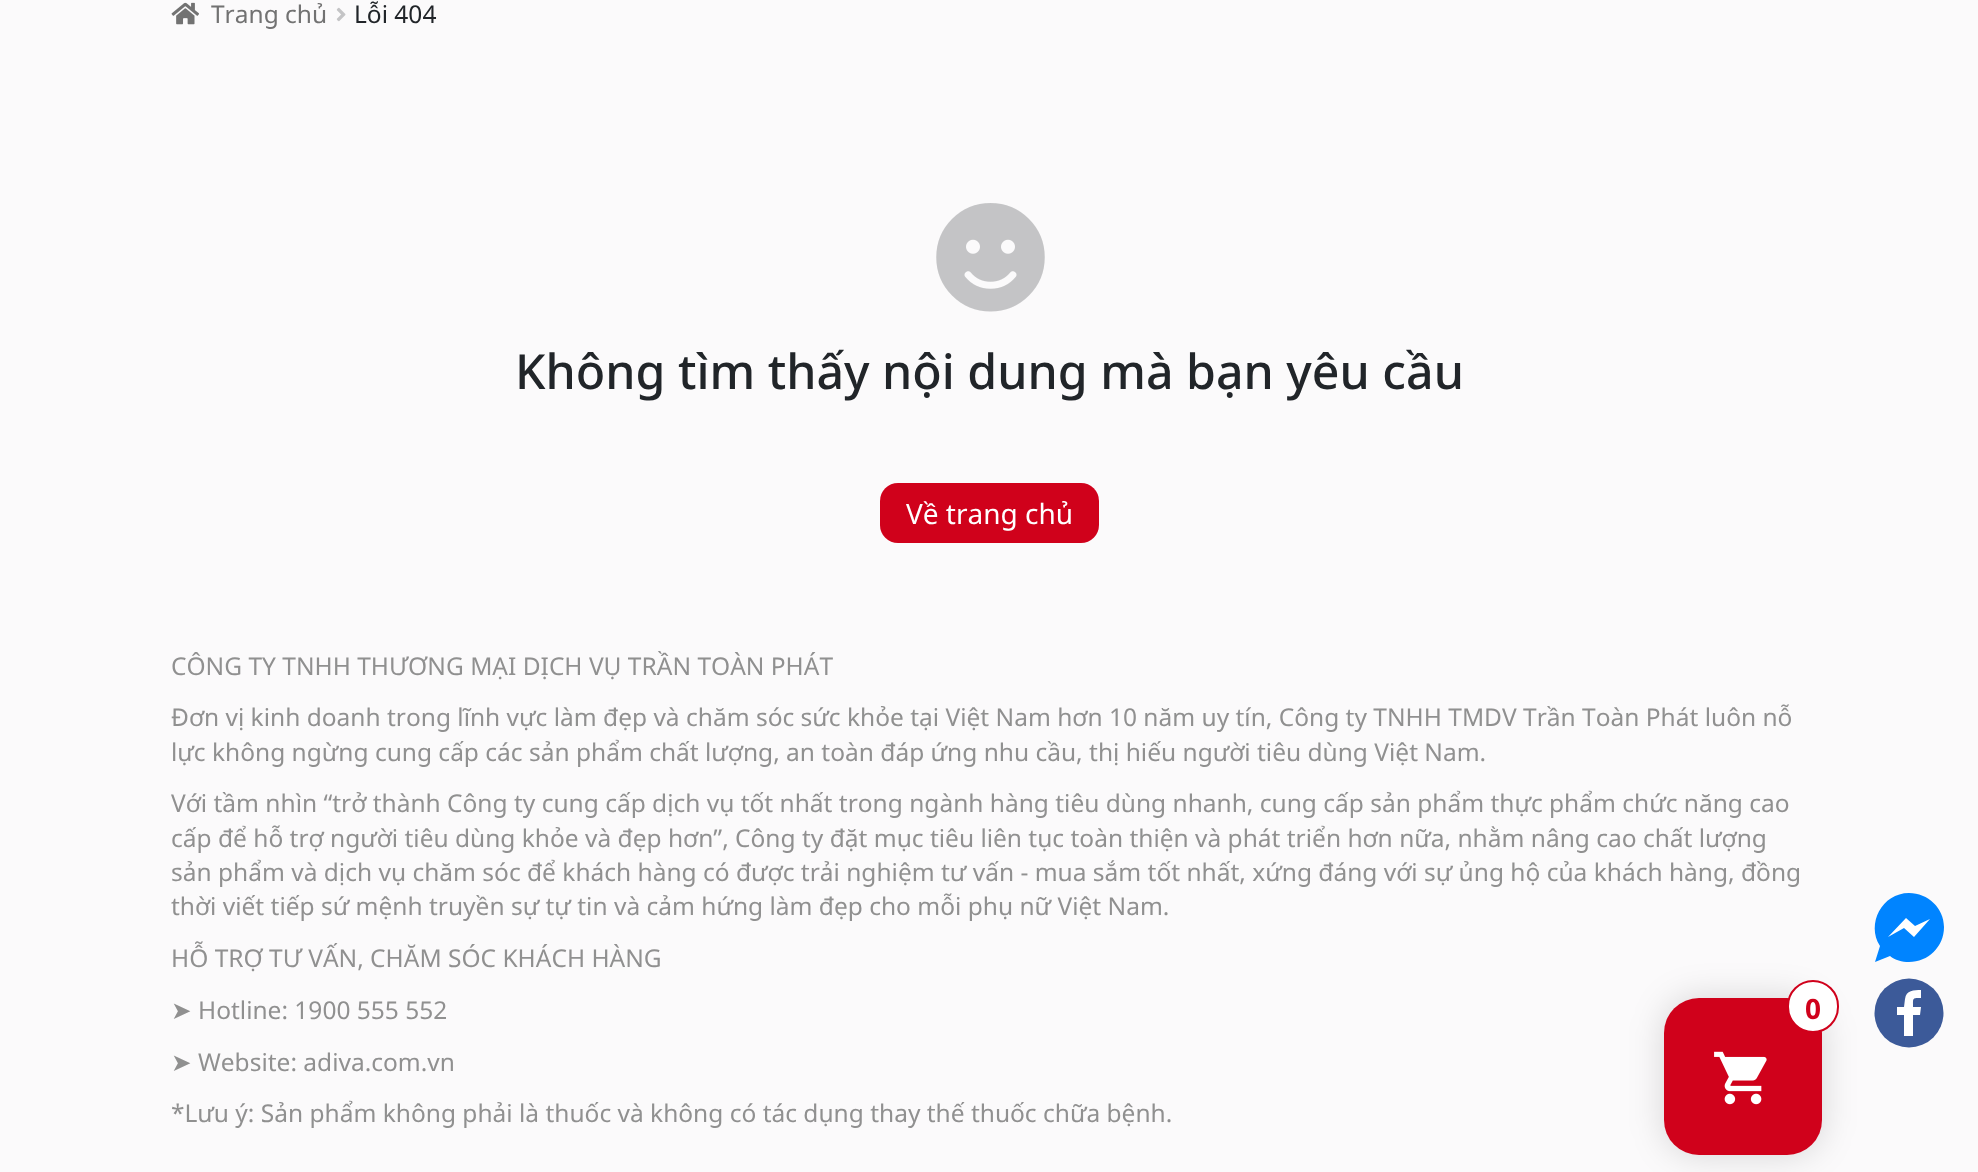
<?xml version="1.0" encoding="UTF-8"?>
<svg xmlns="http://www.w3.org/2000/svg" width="1978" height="1172">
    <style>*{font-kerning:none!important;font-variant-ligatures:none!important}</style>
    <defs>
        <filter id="blur1" x="-50%" y="-200%" width="200%" height="500%"><feGaussianBlur stdDeviation="17.5"/></filter>
    </defs>
    <rect width="100%" height="100%" fill="#FBFAFB"/>
    <image x="171" y="2" width="28" height="23" href="img_01.png"/>
    <text x="211" y="23" font-family="Noto Sans" font-size="24.5" fill="#727272">Trang chủ</text>
    <image x="336" y="7" width="10" height="15" href="img_02.png"/>
    <text x="354" y="23" font-family="Noto Sans" font-size="24.5" fill="#212529">Lỗi 404</text>
    <image x="936" y="203" width="109" height="109" href="img_03.png"/>
    <text x="515" y="389" font-family="Noto Sans" font-size="48.25" font-weight="500" fill="#212529">Không tìm thấy nội dung mà bạn yêu cầu</text>
    <rect x="880" y="483" width="219" height="60" rx="18" fill="#D0011B"/>
    <text x="906" y="524" font-family="Noto Sans" font-size="28" fill="#FFFFFF">Về trang chủ</text>
    <text x="171" y="675" font-family="Noto Sans" font-size="24.5" fill="#909090">CÔNG TY TNHH THƯƠNG MẠI DỊCH VỤ TRẦN TOÀN PHÁT</text>
    <text font-family="Noto Sans" font-size="24.5" fill="#909090">
        <tspan x="171" y="726">Đơn vị kinh doanh trong lĩnh vực làm đẹp và chăm sóc sức khỏe tại Việt Nam hơn 10 năm uy tín, Công ty TNHH TMDV Trần Toàn Phát luôn nỗ</tspan>
        <tspan x="171" y="761">lực không ngừng cung cấp các sản phẩm chất lượng, an toàn đáp ứng nhu cầu, thị hiếu người tiêu dùng Việt Nam.</tspan>
    </text>
    <text font-family="Noto Sans" font-size="24.5" fill="#909090">
        <tspan x="171" y="812">Với tầm nhìn “trở thành Công ty cung cấp dịch vụ tốt nhất trong ngành hàng tiêu dùng nhanh, cung cấp sản phẩm thực phẩm chức năng cao</tspan>
        <tspan x="171" y="847">cấp để hỗ trợ người tiêu dùng khỏe và đẹp hơn”, Công ty đặt mục tiêu liên tục toàn thiện và phát triển hơn nữa, nhằm nâng cao chất lượng</tspan>
        <tspan x="171" y="881">sản phẩm và dịch vụ chăm sóc để khách hàng có được trải nghiệm tư vấn - mua sắm tốt nhất, xứng đáng với sự ủng hộ của khách hàng, đồng</tspan>
        <tspan x="171" y="915">thời viết tiếp sứ mệnh truyền sự tự tin và cảm hứng làm đẹp cho mỗi phụ nữ Việt Nam.</tspan>
    </text>
    <text x="171" y="967" font-family="Noto Sans" font-size="24.5" fill="#909090">HỖ TRỢ TƯ VẤN, CHĂM SÓC KHÁCH HÀNG</text>
    <text x="171" y="1019" font-family="DejaVu Sans" font-size="24.5" fill="#909090">➤</text>
    <text x="198" y="1019" font-family="Noto Sans" font-size="24.5" fill="#909090">Hotline: 1900 555 552</text>
    <text x="171" y="1071" font-family="DejaVu Sans" font-size="24.5" fill="#909090">➤</text>
    <text x="198" y="1071" font-family="Noto Sans" font-size="24.5" fill="#909090">Website: adiva.com.vn</text>
    <text x="171" y="1122" font-family="Noto Sans" font-size="24.5" fill="#909090">*Lưu ý: Sản phẩm không phải là thuốc và không có tác dụng thay thế thuốc chữa bệnh.</text>
    <path d="M 1909 893 C 1882 893 1866 924 1880 946 L 1875 962 L 1890 956 C 1895 960 1902 962 1909 962 C 1928 962 1944 947 1944 927 C 1944 908 1928 893 1909 893 Z" fill="#0084FF"/>
    <circle cx="1909" cy="1013" r="34.5" fill="#3C5A99"/>
    <rect x="1664" y="998" width="158" height="157" rx="35" fill="#000000" fill-opacity="0.15" filter="url(#blur1)"/>
    <rect x="1664" y="998" width="158" height="157" rx="35" fill="#D0011B"/>
    <rect x="1788" y="981" width="50" height="51" rx="25" fill="#FFFFFF" stroke="#D0011B" stroke-width="2"/>
    <text x="1805" y="1019" font-family="Noto Sans" font-size="28" font-weight="700" fill="#D0011B">0</text>
    <image x="1714" y="1051" width="53" height="54" href="img_04.png"/>
    <path d="M 1888 937 L 1906 918 L 1915 926 L 1930 919 L 1914 937 L 1904 928 Z" fill="#FFFFFF"/>
    <path d="M 1913 1036 V 1015 H 1920 L 1921 1007 H 1913 C 1913 998 1912 998 1921 998 V 990 C 1914 990 1906 990 1905 999 L 1904 1007 H 1897 V 1015 H 1904 V 1036 Z" fill="#FFFFFF"/>
</svg>
